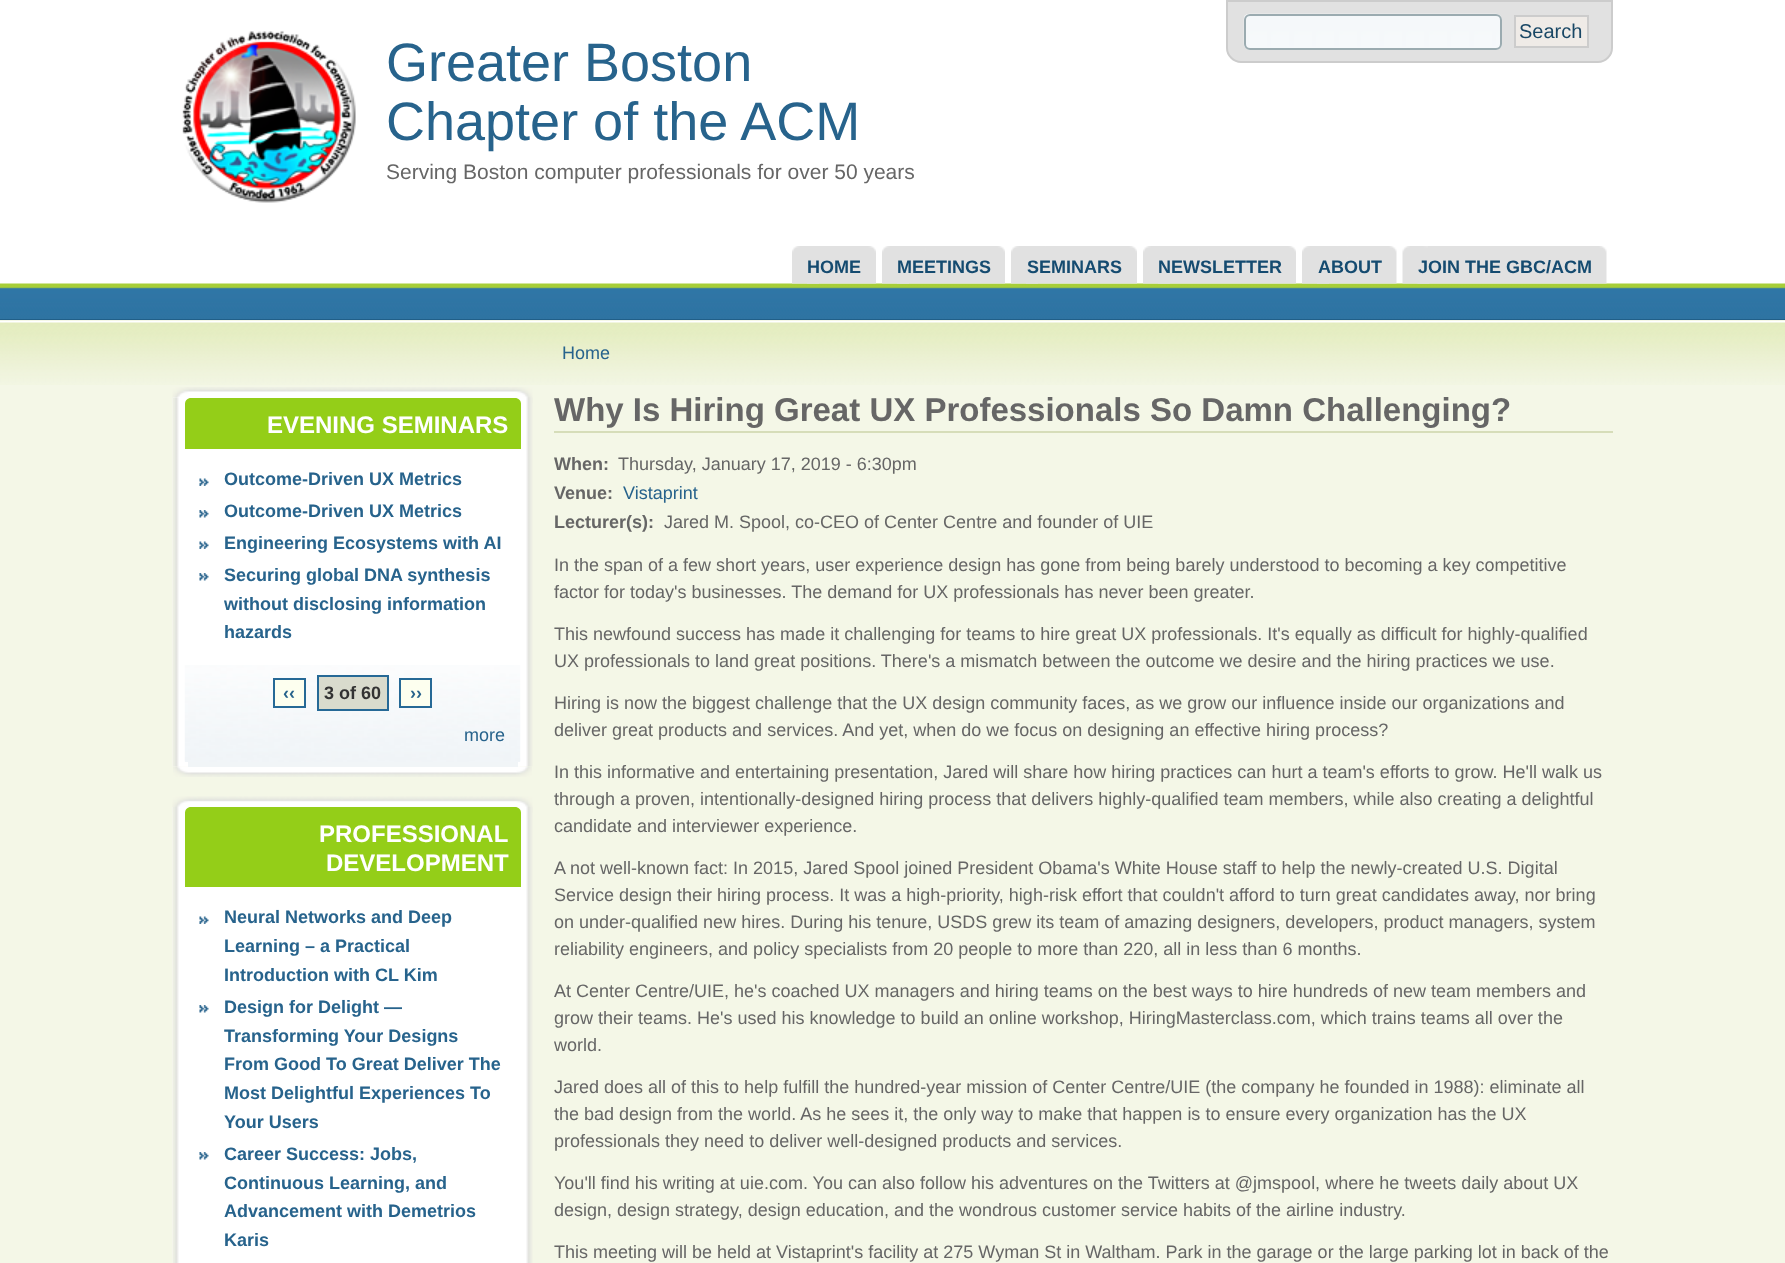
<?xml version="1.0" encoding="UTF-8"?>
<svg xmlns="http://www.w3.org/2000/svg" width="1785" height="1263">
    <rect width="100%" height="100%" fill="#FFFFFF"/>
    <path d="M 1227 1 H 1612 V 48 C 1612 55.5 1605.5 62 1598 62 H 1241 C 1233.5 62 1227 55.5 1227 48 Z" fill="#E1E1E1" stroke="#CCCCCC" stroke-width="2"/>
    <rect x="1244" y="14" width="258" height="36" rx="6" fill="#F6F9FB"/>
    <image x="1243" y="13" width="258" height="34" href="img_01.png"/>
    <rect x="1245" y="15" width="256" height="34" rx="5" fill="none" stroke="#9BABB0" stroke-width="2"/>
    <rect x="1515" y="16" width="73" height="31" fill="#EFEBE7" stroke="#CCCCCC" stroke-width="2"/>
    <text x="1519" y="38" font-family="Liberation Sans" font-size="20" fill="#194765">Search</text>
    <image x="182" y="30" width="174" height="173" href="img_02.png"/>
    <text font-family="Liberation Sans" font-size="54" fill="#27638C">
        <tspan x="386" y="81">Greater Boston</tspan>
        <tspan x="386" y="140">Chapter of the ACM</tspan>
    </text>
    <text x="386" y="179" font-family="Liberation Sans" font-size="21" fill="#666666">Serving Boston computer professionals for over 50 years</text>
    <rect x="0" y="319" width="1785" height="1" fill="#144A6E"/>
    <image x="0" y="283" width="1785" height="37" href="img_12.png"/>
    <image x="792" y="246" width="27" height="38" href="img_03.png"/>
    <image x="807" y="246" width="69" height="38" href="img_04.png"/>
    <text x="807" y="273" font-family="Liberation Sans" font-size="18" font-weight="700" fill="#154B70">HOME</text>
    <image x="882" y="246" width="27" height="38" href="img_03.png"/>
    <image x="897" y="246" width="108" height="38" href="img_05.png"/>
    <text x="897" y="273" font-family="Liberation Sans" font-size="18" font-weight="700" fill="#154B70">MEETINGS</text>
    <image x="1011" y="246" width="27" height="38" href="img_03.png"/>
    <image x="1026" y="246" width="111" height="38" href="img_06.png"/>
    <text x="1027" y="273" font-family="Liberation Sans" font-size="18" font-weight="700" fill="#154B70">SEMINARS</text>
    <image x="1143" y="246" width="27" height="38" href="img_07.png"/>
    <image x="1158" y="246" width="138" height="38" href="img_08.png"/>
    <text x="1158" y="273" font-family="Liberation Sans" font-size="18" font-weight="700" fill="#154B70">NEWSLETTER</text>
    <image x="1302" y="246" width="27" height="38" href="img_03.png"/>
    <image x="1317" y="246" width="80" height="38" href="img_09.png"/>
    <text x="1318" y="273" font-family="Liberation Sans" font-size="18" font-weight="700" fill="#154B70">ABOUT</text>
    <image x="1402" y="246" width="28" height="38" href="img_10.png"/>
    <image x="1417" y="246" width="190" height="38" href="img_11.png"/>
    <text x="1418" y="273" font-family="Liberation Sans" font-size="18" font-weight="700" fill="#154B70">JOIN THE GBC/ACM</text>
    <rect x="0" y="320" width="1785" height="943" fill="#F4F7E7"/>
    <image x="0" y="321" width="1785" height="64" href="img_13.png"/>
    <text x="562" y="359" font-family="Liberation Sans" font-size="18" fill="#27638C">Home</text>
    <image x="172" y="387" width="17" height="17" href="img_14.png"/>
    <image x="189" y="387" width="344" height="17" href="img_15.png"/>
    <image x="172" y="397" width="361" height="370" href="img_16.png"/>
    <image x="172" y="397" width="348" height="370" href="img_17.png"/>
    <path d="M 191 398 H 515 C 518.5 398 521 400.5 521 404 V 449 H 185 V 404 C 185 400.5 187.5 398 191 398 Z" fill="#94CE18"/>
    <text x="267" y="433" font-family="Liberation Sans" font-size="24" font-weight="700" fill="#FFFFFF">EVENING SEMINARS</text>
    <image x="184" y="665" width="337" height="97" href="img_18.png"/>
    <image x="173" y="766" width="343" height="11" href="img_21.png"/>
    <image x="516" y="766" width="16" height="11" href="img_22.png"/>
    <rect x="188" y="762" width="330" height="5" fill="#F1F5F7"/>
    <image x="199" y="478" width="10" height="8" href="img_19.png"/>
    <text x="224" y="485" font-family="Liberation Sans" font-size="18" font-weight="700" fill="#27638C">Outcome-Driven UX Metrics</text>
    <image x="199" y="510" width="10" height="8" href="img_20.png"/>
    <text x="224" y="517" font-family="Liberation Sans" font-size="18" font-weight="700" fill="#27638C">Outcome-Driven UX Metrics</text>
    <image x="199" y="541" width="10" height="8" href="img_19.png"/>
    <text x="224" y="549" font-family="Liberation Sans" font-size="18" font-weight="700" fill="#27638C">Engineering Ecosystems with AI</text>
    <image x="199" y="573" width="10" height="8" href="img_20.png"/>
    <text font-family="Liberation Sans" font-size="18" font-weight="700" fill="#27638C">
        <tspan x="224" y="581">Securing global DNA synthesis</tspan>
        <tspan x="224" y="610">without disclosing information</tspan>
        <tspan x="224" y="638">hazards</tspan>
    </text>
    <rect x="274" y="679" width="31" height="28" fill="#FDFFEF" stroke="#266996" stroke-width="2"/>
    <text x="283" y="699" font-family="Liberation Sans" font-size="18" font-weight="700" fill="#27638C">‹‹</text>
    <rect x="318" y="676" width="70" height="34" fill="#D9DBCD" stroke="#266996" stroke-width="2"/>
    <text x="324" y="699" font-family="Liberation Sans" font-size="18" font-weight="700" fill="#333333">3 of 60</text>
    <rect x="400" y="679" width="31" height="28" fill="#FDFFEF" stroke="#266996" stroke-width="2"/>
    <text x="410" y="699" font-family="Liberation Sans" font-size="18" font-weight="700" fill="#27638C">››</text>
    <text x="464" y="741" font-family="Liberation Sans" font-size="18" fill="#27638C">more</text>
    <image x="172" y="796" width="344" height="17" href="img_23.png"/>
    <image x="516" y="796" width="17" height="17" href="img_24.png"/>
    <image x="172" y="807" width="361" height="456" href="img_25.png"/>
    <image x="172" y="807" width="7" height="456" href="img_26.png"/>
    <path d="M 191 807 H 515 C 518.5 807 521 809.5 521 813 V 887 H 185 V 813 C 185 809.5 187.5 807 191 807 Z" fill="#94CE18"/>
    <text x="319" y="842" font-family="Liberation Sans" font-size="24" font-weight="700" fill="#FFFFFF">PROFESSIONAL</text>
    <text x="326" y="871" font-family="Liberation Sans" font-size="24" font-weight="700" fill="#FFFFFF">DEVELOPMENT</text>
    <image x="199" y="916" width="10" height="8" href="img_19.png"/>
    <text font-family="Liberation Sans" font-size="18" font-weight="700" fill="#27638C">
        <tspan x="224" y="923">Neural Networks and Deep</tspan>
        <tspan x="224" y="952">Learning – a Practical</tspan>
        <tspan x="224" y="981">Introduction with CL Kim</tspan>
    </text>
    <image x="199" y="1005" width="10" height="8" href="img_20.png"/>
    <text font-family="Liberation Sans" font-size="18" font-weight="700" fill="#27638C">
        <tspan x="224" y="1013">Design for Delight —</tspan>
        <tspan x="224" y="1042">Transforming Your Designs</tspan>
        <tspan x="224" y="1070">From Good To Great Deliver The</tspan>
        <tspan x="224" y="1099">Most Delightful Experiences To</tspan>
        <tspan x="224" y="1128">Your Users</tspan>
    </text>
    <image x="199" y="1152" width="10" height="8" href="img_20.png"/>
    <text font-family="Liberation Sans" font-size="18" font-weight="700" fill="#27638C">
        <tspan x="224" y="1160">Career Success: Jobs,</tspan>
        <tspan x="224" y="1189">Continuous Learning, and</tspan>
        <tspan x="224" y="1217">Advancement with Demetrios</tspan>
        <tspan x="224" y="1246">Karis</tspan>
    </text>
    <rect x="554" y="431" width="1059" height="2" fill="#D6DDB9"/>
    <text x="554" y="421" font-family="Liberation Sans" font-size="33" font-weight="700" fill="#666666">Why Is Hiring Great UX Professionals So Damn Challenging?</text>
    <text x="554" y="470" font-family="Liberation Sans" font-size="18" font-weight="700" fill="#666666">When:</text>
    <text x="618" y="470" font-family="Liberation Sans" font-size="18" fill="#666666">Thursday, January 17, 2019 - 6:30pm</text>
    <text x="554" y="499" font-family="Liberation Sans" font-size="18" font-weight="700" fill="#666666">Venue:</text>
    <text x="623" y="499" font-family="Liberation Sans" font-size="18" fill="#27638C">Vistaprint</text>
    <text x="554" y="528" font-family="Liberation Sans" font-size="18" font-weight="700" fill="#666666">Lecturer(s):</text>
    <text x="664" y="528" font-family="Liberation Sans" font-size="18" fill="#666666">Jared M. Spool, co-CEO of Center Centre and founder of UIE</text>
    <text font-family="Liberation Sans" font-size="18" fill="#666666">
        <tspan x="554" y="571">In the span of a few short years, user experience design has gone from being barely understood to becoming a key competitive</tspan>
        <tspan x="554" y="598">factor for today's businesses. The demand for UX professionals has never been greater.</tspan>
    </text>
    <text font-family="Liberation Sans" font-size="18" fill="#666666">
        <tspan x="554" y="640">This newfound success has made it challenging for teams to hire great UX professionals. It's equally as difficult for highly-qualified</tspan>
        <tspan x="554" y="667">UX professionals to land great positions. There's a mismatch between the outcome we desire and the hiring practices we use.</tspan>
    </text>
    <text font-family="Liberation Sans" font-size="18" fill="#666666">
        <tspan x="554" y="709">Hiring is now the biggest challenge that the UX design community faces, as we grow our influence inside our organizations and</tspan>
        <tspan x="554" y="736">deliver great products and services. And yet, when do we focus on designing an effective hiring process?</tspan>
    </text>
    <text font-family="Liberation Sans" font-size="18" fill="#666666">
        <tspan x="554" y="778">In this informative and entertaining presentation, Jared will share how hiring practices can hurt a team's efforts to grow. He'll walk us</tspan>
        <tspan x="554" y="805">through a proven, intentionally-designed hiring process that delivers highly-qualified team members, while also creating a delightful</tspan>
        <tspan x="554" y="832">candidate and interviewer experience.</tspan>
    </text>
    <text font-family="Liberation Sans" font-size="18" fill="#666666">
        <tspan x="554" y="874">A not well-known fact: In 2015, Jared Spool joined President Obama's White House staff to help the newly-created U.S. Digital</tspan>
        <tspan x="554" y="901">Service design their hiring process. It was a high-priority, high-risk effort that couldn't afford to turn great candidates away, nor bring</tspan>
        <tspan x="554" y="928">on under-qualified new hires. During his tenure, USDS grew its team of amazing designers, developers, product managers, system</tspan>
        <tspan x="554" y="955">reliability engineers, and policy specialists from 20 people to more than 220, all in less than 6 months.</tspan>
    </text>
    <text font-family="Liberation Sans" font-size="18" fill="#666666">
        <tspan x="554" y="997">At Center Centre/UIE, he's coached UX managers and hiring teams on the best ways to hire hundreds of new team members and</tspan>
        <tspan x="554" y="1024">grow their teams. He's used his knowledge to build an online workshop, HiringMasterclass.com, which trains teams all over the</tspan>
        <tspan x="554" y="1051">world.</tspan>
    </text>
    <text font-family="Liberation Sans" font-size="18" fill="#666666">
        <tspan x="554" y="1093">Jared does all of this to help fulfill the hundred-year mission of Center Centre/UIE (the company he founded in 1988): eliminate all</tspan>
        <tspan x="554" y="1120">the bad design from the world. As he sees it, the only way to make that happen is to ensure every organization has the UX</tspan>
        <tspan x="554" y="1147">professionals they need to deliver well-designed products and services.</tspan>
    </text>
    <text font-family="Liberation Sans" font-size="18" fill="#666666">
        <tspan x="554" y="1189">You'll find his writing at uie.com. You can also follow his adventures on the Twitters at @jmspool, where he tweets daily about UX</tspan>
        <tspan x="554" y="1216">design, design strategy, design education, and the wondrous customer service habits of the airline industry.</tspan>
    </text>
    <text x="554" y="1258" font-family="Liberation Sans" font-size="18" fill="#666666">This meeting will be held at Vistaprint's facility at 275 Wyman St in Waltham. Park in the garage or the large parking lot in back of the</text>
</svg>
